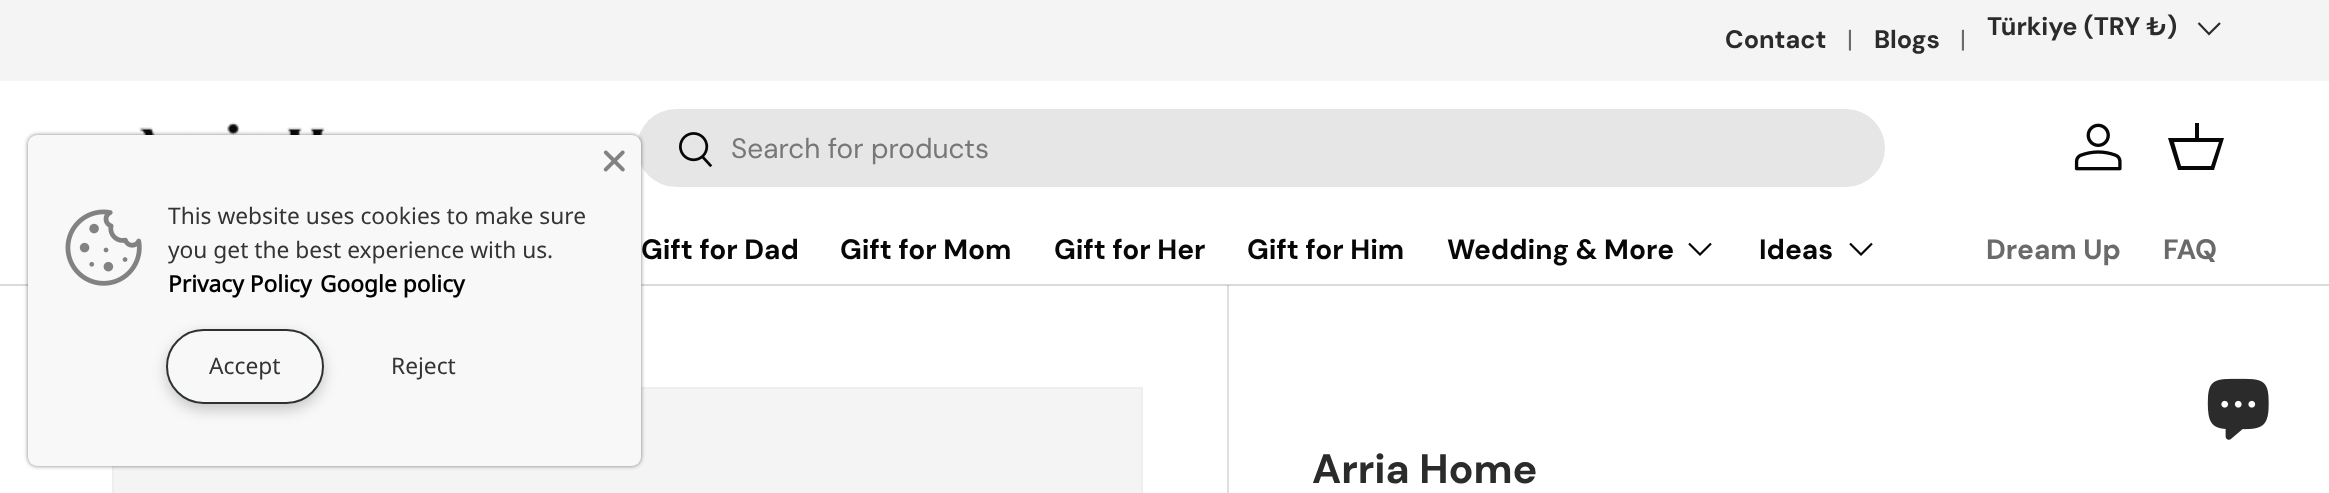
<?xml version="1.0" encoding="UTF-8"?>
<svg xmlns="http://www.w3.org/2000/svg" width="2329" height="493">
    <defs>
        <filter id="blur1" x="-50%" y="-200%" width="200%" height="500%"><feGaussianBlur stdDeviation="2"/></filter>
        <filter id="blur2" x="-50%" y="-200%" width="200%" height="500%"><feGaussianBlur stdDeviation="7"/></filter>
    </defs>
    <rect width="100%" height="100%" fill="#FFFFFF"/>
    <rect x="0" y="284" width="2329" height="2" fill="#DADADA"/>
    <rect x="0" y="0" width="2329" height="81" fill="#F4F4F4"/>
    <text x="1725" y="48" font-family="'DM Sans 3'" font-size="25.25" font-weight="700" fill="#2A2B2A">Contact</text>
    <text x="1847" y="48" font-family="'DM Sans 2'" font-size="25.25" fill="#6A6A6A">|</text>
    <text x="1874" y="48" font-family="'DM Sans 3'" font-size="25.25" font-weight="700" fill="#2A2B2A">Blogs</text>
    <text x="1960" y="48" font-family="'DM Sans 2'" font-size="25.25" fill="#6A6A6A">|</text>
    <text x="1987" y="35" font-family="'DM Sans 3'" font-size="25.25" font-weight="700" fill="#2A2B2A">Türkiye (TRY ₺)</text>
    <path d="M 2220 23 L 2209 34 L 2198.5 23" fill="none" stroke="#2A2B2A" stroke-width="2.2"/>
    <image x="139" y="122" width="186" height="13" href="img_03.png"/>
    <rect x="637" y="109" width="1248" height="78" rx="39" fill="#E6E6E6"/>
    <rect x="113" y="388" width="1029" height="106" fill="#F4F4F4" stroke="#EEEEEE" stroke-width="2"/>
    <rect x="28" y="135" width="613" height="331" rx="9" fill="#000000" fill-opacity="0.5" filter="url(#blur1)"/>
    <rect x="28" y="135" width="613" height="331" rx="9" fill="#F8F8F8"/>
    <image x="603" y="150" width="22" height="22" href="img_01.png"/>
    <image x="65" y="209" width="77" height="77" href="img_02.png"/>
    <text font-family="Noto Sans" font-size="22.75" fill="#343434">
        <tspan x="168" y="224">This website uses cookies to make sure</tspan>
        <tspan x="168" y="258">you get the best experience with us.</tspan>
    </text>
    <text x="168" y="292" font-family="Noto Sans" font-size="22.75" font-weight="700" fill="#000000">Privacy Policy</text>
    <text x="320" y="292" font-family="Noto Sans" font-size="22.75" font-weight="700" fill="#000000">Google policy</text>
    <rect x="166" y="334" width="158" height="76" rx="38" fill="#000000" fill-opacity="0.2" filter="url(#blur2)"/>
    <rect x="167" y="330" width="156" height="73" rx="36.5" fill="#F8F8F8" stroke="#2C332F" stroke-width="2"/>
    <text x="209" y="374" font-family="Noto Sans" font-size="22.75" fill="#343434">Accept</text>
    <text x="391" y="374" font-family="Noto Sans" font-size="22.75" fill="#343434">Reject</text>
    <image x="679" y="132" width="34" height="36" href="img_04.png"/>
    <text x="731" y="158" font-family="DM Sans" font-size="28" fill="#777777">Search for products</text>
    <image x="2074" y="123" width="48" height="48" href="img_05.png"/>
    <path d="M 2195 138 V 123 H 2199 V 138 H 2224 L 2214 170 H 2178 L 2168 138 Z M 2174 142 L 2181 166 H 2211 L 2219 142 Z" fill="#070707"/>
    <text x="641" y="259" font-family="'DM Sans 2'" font-size="28" font-weight="700" fill="#070707">Gift for Dad</text>
    <text x="840" y="259" font-family="'DM Sans 2'" font-size="28" font-weight="700" fill="#070707">Gift for Mom</text>
    <text x="1054" y="259" font-family="'DM Sans 2'" font-size="28" font-weight="700" fill="#070707">Gift for Her</text>
    <text x="1247" y="259" font-family="'DM Sans 2'" font-size="28" font-weight="700" fill="#070707">Gift for Him</text>
    <text x="1447" y="259" font-family="'DM Sans 2'" font-size="28" font-weight="700" fill="#070707">Wedding &amp; More</text>
    <path d="M 1711 243.5 L 1700 254.5 L 1689 243.5" fill="none" stroke="#070707" stroke-width="2.2"/>
    <text x="1759" y="259" font-family="'DM Sans 2'" font-size="28" font-weight="700" fill="#070707">Ideas</text>
    <path d="M 1872 243.5 L 1861 254.5 L 1850 243.5" fill="none" stroke="#070707" stroke-width="2.2"/>
    <text x="1986" y="259" font-family="'DM Sans 2'" font-size="28" font-weight="700" fill="#6A6A6A">Dream Up</text>
    <text x="2163" y="259" font-family="'DM Sans 2'" font-size="28" font-weight="700" fill="#6A6A6A">FAQ</text>
    <image x="2207" y="378" width="62" height="62" href="img_06.png"/>
    <rect x="1227" y="285" width="2" height="208" fill="#DFDFDF"/>
    <rect x="1227" y="285" width="2" height="1" fill="#BFBFBF"/>
    <text x="1312" y="483" font-family="DM Sans" font-size="41.25" font-weight="700" fill="#2A2B2A">Arria Home</text>
</svg>
